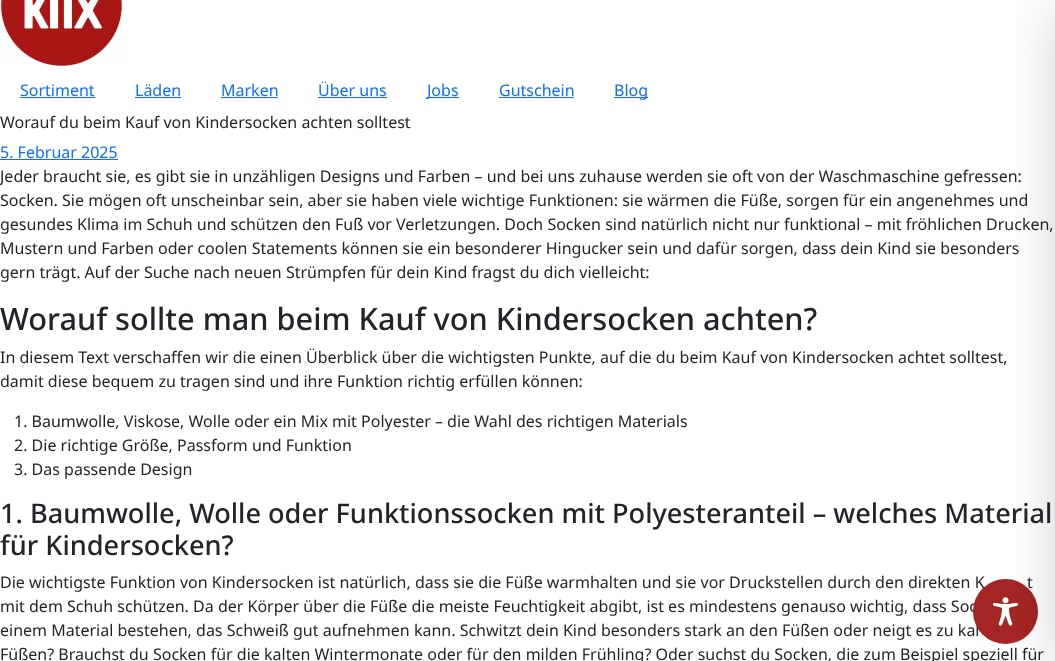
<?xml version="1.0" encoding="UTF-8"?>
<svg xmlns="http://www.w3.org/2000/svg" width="1055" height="661">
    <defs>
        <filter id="blur1" x="-50%" y="-200%" width="200%" height="500%"><feGaussianBlur stdDeviation="30"/></filter>
    </defs>
    <rect width="100%" height="100%" fill="#FFFFFF"/>
    <image x="1" y="0" width="121" height="66" href="img_01.png"/>
    <text x="20" y="96" font-family="Noto Sans" font-size="16" fill="#0D6EFD">Sortiment</text>
    <rect x="20" y="97" width="75" height="1" fill="#0D6EFD"/>
    <text x="135" y="96" font-family="Noto Sans" font-size="16" fill="#0D6EFD">Läden</text>
    <rect x="135" y="97" width="46" height="1" fill="#0D6EFD"/>
    <text x="221" y="96" font-family="Noto Sans" font-size="16" fill="#0D6EFD">Marken</text>
    <rect x="221" y="97" width="57" height="1" fill="#0D6EFD"/>
    <text x="318" y="96" font-family="Noto Sans" font-size="16" fill="#0D6EFD">Über uns</text>
    <rect x="318" y="97" width="69" height="1" fill="#0D6EFD"/>
    <rect x="427" y="97" width="32" height="1" fill="#0D6EFD"/>
    <text x="427" y="96" font-family="Noto Sans" font-size="16" fill="#0D6EFD">Jobs</text>
    <text x="499" y="96" font-family="Noto Sans" font-size="16" fill="#0D6EFD">Gutschein</text>
    <rect x="499" y="97" width="75" height="1" fill="#0D6EFD"/>
    <rect x="614" y="97" width="34" height="1" fill="#0D6EFD"/>
    <text x="614" y="96" font-family="Noto Sans" font-size="16" fill="#0D6EFD">Blog</text>
    <text x="0" y="588" font-family="Noto Sans" font-size="16" fill="#212529">Die wichtigste Funktion von Kindersocken ist natürlich, dass sie die Füße warmhalten und sie vor Druckstellen durch den direkten K</text>
    <text x="1027" y="588" font-family="Noto Sans" font-size="16" fill="#212529">t</text>
    <text font-family="Noto Sans" font-size="16" fill="#212529">
        <tspan x="0" y="612">mit dem Schuh schützen. Da der Körper über die Füße die meiste Feuchtigkeit abgibt, ist es mindestens genauso wichtig, dass Soc</tspan>
        <tspan x="0" y="636">einem Material bestehen, das Schweiß gut aufnehmen kann. Schwitzt dein Kind besonders stark an den Füßen oder neigt es zu kal</tspan>
    </text>
    <circle cx="1005.5" cy="611.5" r="32.5" fill="#A42523"/>
    <image x="993" y="597" width="25" height="29" href="img_02.png"/>
    <rect x="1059" y="10" width="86" height="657" fill="#000000" fill-opacity="0.2" filter="url(#blur1)"/>
    <text x="0" y="128" font-family="Noto Sans" font-size="16" fill="#212529">Worauf du beim Kauf von Kindersocken achten solltest</text>
    <text x="0" y="158" font-family="Noto Sans" font-size="16" fill="#0D6EFD">5. Februar 2025</text>
    <rect x="0" y="159" width="118" height="1" fill="#0D6EFD"/>
    <text font-family="Noto Sans" font-size="16" fill="#212529">
        <tspan x="0" y="182">Jeder braucht sie, es gibt sie in unzähligen Designs und Farben – und bei uns zuhause werden sie oft von der Waschmaschine gefressen:</tspan>
        <tspan x="0" y="206">Socken. Sie mögen oft unscheinbar sein, aber sie haben viele wichtige Funktionen: sie wärmen die Füße, sorgen für ein angenehmes und</tspan>
        <tspan x="0" y="230">gesundes Klima im Schuh und schützen den Fuß vor Verletzungen. Doch Socken sind natürlich nicht nur funktional – mit fröhlichen Drucken,</tspan>
        <tspan x="0" y="254">Mustern und Farben oder coolen Statements können sie ein besonderer Hingucker sein und dafür sorgen, dass dein Kind sie besonders</tspan>
        <tspan x="0" y="278">gern trägt. Auf der Suche nach neuen Strümpfen für dein Kind fragst du dich vielleicht:</tspan>
    </text>
    <text x="0" y="330" font-family="Noto Sans" font-size="30.7" font-weight="500" fill="#212529">Worauf sollte man beim Kauf von Kindersocken achten?</text>
    <text font-family="Noto Sans" font-size="16" fill="#212529">
        <tspan x="0" y="363">In diesem Text verschaffen wir die einen Überblick über die wichtigsten Punkte, auf die du beim Kauf von Kindersocken achtet solltest,</tspan>
        <tspan x="0" y="387">damit diese bequem zu tragen sind und ihre Funktion richtig erfüllen können:</tspan>
    </text>
    <text font-family="Noto Sans" font-size="16" fill="#212529">
        <tspan x="14" y="427">1. Baumwolle, Viskose, Wolle oder ein Mix mit Polyester – die Wahl des richtigen Materials</tspan>
        <tspan x="14" y="451">2. Die richtige Größe, Passform und Funktion</tspan>
        <tspan x="14" y="475">3. Das passende Design</tspan>
    </text>
    <text font-family="Noto Sans" font-size="27.15" font-weight="500" fill="#212529">
        <tspan x="0" y="523">1. Baumwolle, Wolle oder Funktionssocken mit Polyesteranteil – welches Material</tspan>
        <tspan x="0" y="555">für Kindersocken?</tspan>
    </text>
    <text x="0" y="660" font-family="Noto Sans" font-size="16" fill="#212529">Füßen? Brauchst du Socken für die kalten Wintermonate oder für den milden Frühling? Oder suchst du Socken, die zum Beispiel speziell für</text>
</svg>
